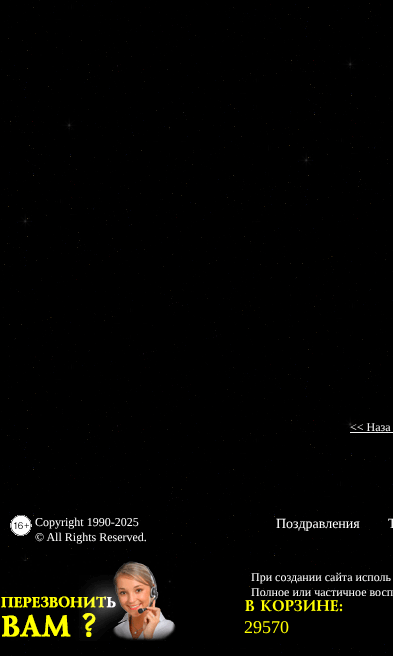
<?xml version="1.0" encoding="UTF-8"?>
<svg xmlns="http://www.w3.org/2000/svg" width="393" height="656">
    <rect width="100%" height="100%" fill="#000000"/>
    <image x="1" y="459" width="392" height="197" href="img_01.png"/>
    <image x="267" y="2" width="14" height="457" href="img_02.png"/>
    <image x="1" y="0" width="266" height="459" href="img_03.png"/>
    <image x="282" y="3" width="111" height="456" href="img_04.png"/>
    <text x="350" y="431" font-family="Liberation Serif" font-size="12" fill="#F5F5F5">&lt;&lt; Наза</text>
    <rect x="350" y="432" width="43" height="1" fill="#F5F5F5"/>
    <rect x="4" y="459" width="257" height="31" fill="#000000"/>
    <image x="4" y="459" width="262" height="31" href="img_05.png"/>
    <rect x="1" y="505" width="391" height="138" fill="#000000"/>
    <image x="1" y="505" width="234" height="62" href="img_06.png"/>
    <image x="10" y="515" width="22" height="21" href="img_07.png"/>
    <text font-family="Liberation Serif" font-size="12" fill="#FFFFFF">
        <tspan x="35" y="526">Copyright 1990-2025</tspan>
        <tspan x="35" y="541">© All Rights Reserved.</tspan>
    </text>
    <image x="245" y="506" width="146" height="35" href="img_08.png"/>
    <text x="276" y="528" font-family="Liberation Serif" font-size="14" fill="#FFFFFF">Поздравления</text>
    <text x="388" y="528" font-family="Liberation Serif" font-size="14" fill="#FFFFFF">Т</text>
    <image x="242" y="545" width="149" height="51" href="img_09.png"/>
    <text font-family="Liberation Serif" font-size="12" fill="#FFFFFF">
        <tspan x="251" y="581">При создании сайта исполь</tspan>
        <tspan x="251" y="596">Полное или частичное восп</tspan>
    </text>
    <image x="1" y="561" width="175" height="80" href="img_10.png"/>
    <rect x="262" y="596" width="124" height="1" fill="#000000"/>
    <text x="244" y="611" font-family="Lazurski" font-size="16" font-weight="700" fill="#FFFF00">В КОРЗИНЕ:</text>
    <text x="244" y="633" font-family="Liberation Serif" font-size="18" fill="#FFFF00">29570</text>
</svg>
